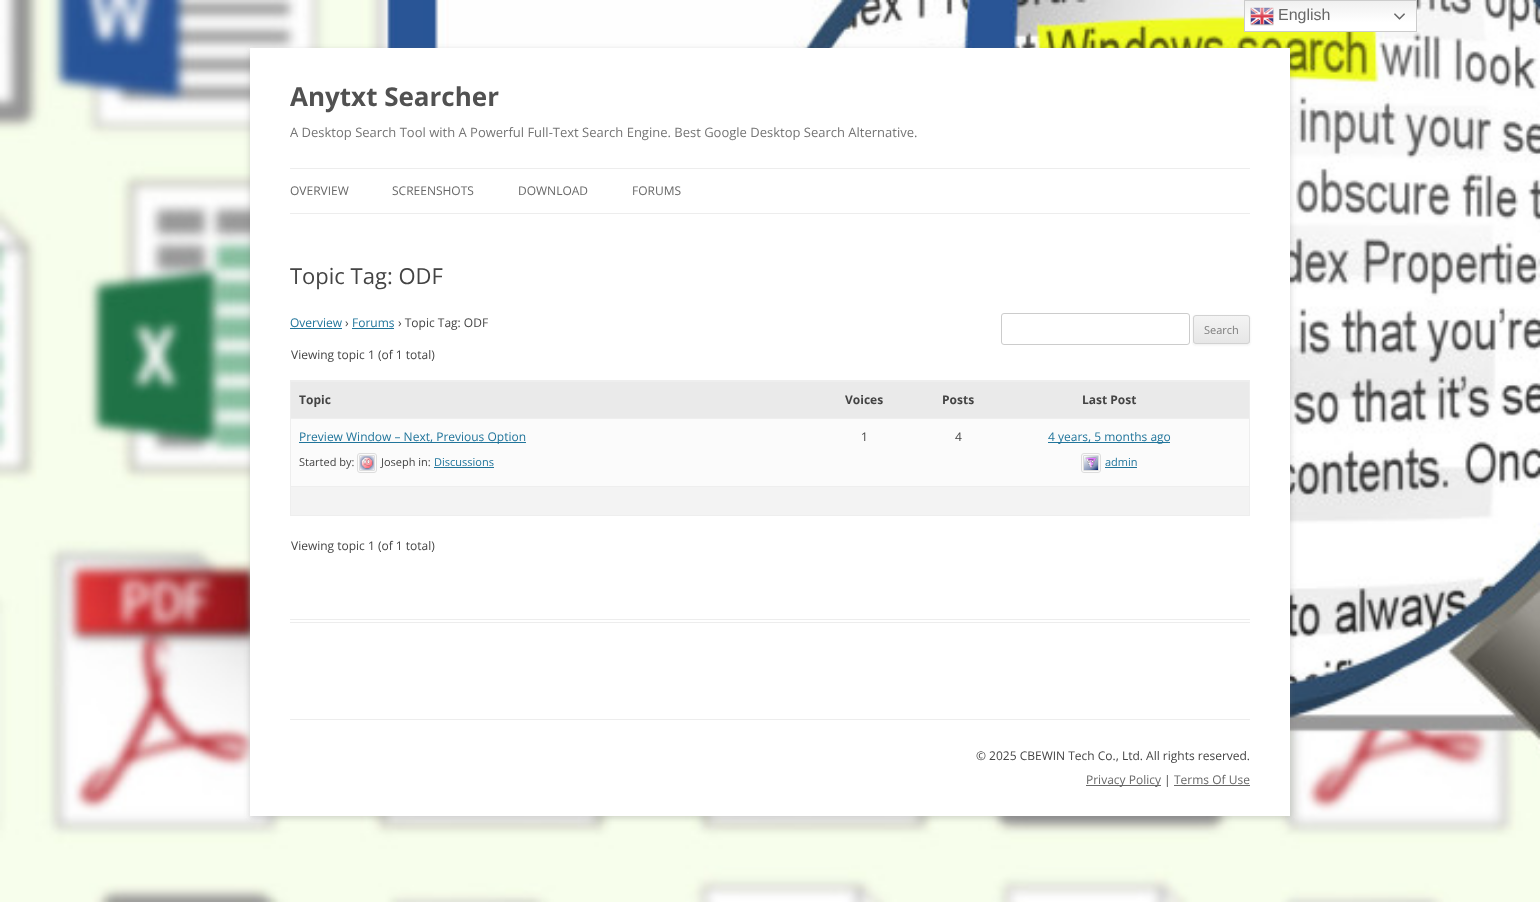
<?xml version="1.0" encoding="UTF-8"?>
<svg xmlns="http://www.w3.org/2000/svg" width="1540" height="902">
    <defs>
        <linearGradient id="g1" gradientUnits="userSpaceOnUse" x1="1331" y1="0" x2="1331" y2="32"><stop offset="0" stop-color="#EFEFEF"/><stop offset="0.7" stop-color="#FFFFFF"/></linearGradient>
        <filter id="blur1" x="-50%" y="-200%" width="200%" height="500%"><feGaussianBlur stdDeviation="3"/></filter>
        <filter id="blur2" x="-50%" y="-200%" width="200%" height="500%"><feGaussianBlur stdDeviation="1"/></filter>
        <clipPath id="clip1"><rect x="1193" y="315" width="57" height="29" rx="3"/></clipPath>
        <linearGradient id="g2" gradientUnits="userSpaceOnUse" x1="1222" y1="316" x2="1222" y2="343"><stop offset="0" stop-color="#F4F4F4"/><stop offset="1" stop-color="#E6E6E6"/></linearGradient>
    </defs>
    <rect width="100%" height="100%" fill="#FFFFFF"/>
    <image x="0" y="0" width="1540" height="902" href="img_01.png"/>
    <rect x="1245" y="1" width="171" height="30" fill="url(#g1)"/>
    <rect x="1244.5" y="0.5" width="172" height="31" fill="none" stroke="#CCCCCC"/>
    <image x="1250" y="7" width="24" height="19" href="img_02.png"/>
    <text x="1278" y="20" font-family="Liberation Sans" font-size="16" fill="#686868">English</text>
    <image x="1394" y="13" width="11" height="7" href="img_03.png"/>
    <rect x="250" y="50" width="1040" height="768" fill="#646464" fill-opacity="0.3" filter="url(#blur1)"/>
    <rect x="250" y="48" width="1040" height="768" fill="#FFFFFF"/>
    <text x="290" y="106" font-family="Open Sans" font-size="26" font-weight="700" fill="#515151">Anytxt Searcher</text>
    <text x="290" y="137" font-family="Open Sans" font-size="13" fill="#757575">A Desktop Search Tool with A Powerful Full-Text Search Engine. Best Google Desktop Search Alternative.</text>
    <rect x="290" y="168" width="960" height="1" fill="#EDEDED"/>
    <rect x="290" y="213" width="960" height="1" fill="#EDEDED"/>
    <text x="290" y="195" font-family="Open Sans" font-size="12" fill="#686868">OVERVIEW</text>
    <text x="392" y="195" font-family="Open Sans" font-size="12" fill="#686868">SCREENSHOTS</text>
    <text x="518" y="195" font-family="Open Sans" font-size="12" fill="#686868">DOWNLOAD</text>
    <text x="632" y="195" font-family="Open Sans" font-size="12" fill="#686868">FORUMS</text>
    <rect x="290" y="619" width="960" height="1" fill="#EDEDED"/>
    <rect x="290" y="622" width="960" height="1" fill="#EDEDED"/>
    <text x="290" y="284" font-family="Open Sans" font-size="22" fill="#444444">Topic Tag: ODF</text>
    <text x="290" y="327" font-family="Open Sans" font-size="12" fill="#21759B">Overview</text>
    <rect x="290" y="328" width="52" height="1" fill="#21759B"/>
    <text x="345" y="327" font-family="Open Sans" font-size="12" fill="#444444">›</text>
    <text x="352" y="327" font-family="Open Sans" font-size="12" fill="#21759B">Forums</text>
    <rect x="352" y="328" width="42" height="1" fill="#21759B"/>
    <text x="398" y="327" font-family="Open Sans" font-size="12" fill="#444444">› Topic Tag: ODF</text>
    <rect x="1001.5" y="313.5" width="188" height="31" rx="2.5" fill="none" stroke="#CCCCCC"/>
    <rect x="1193" y="316" width="57" height="29" rx="3" fill="#404040" fill-opacity="0.1" filter="url(#blur2)"/>
    <g clip-path="url(#clip1)">
        <rect x="1193" y="316" width="57" height="27" fill="url(#g2)"/>
    </g>
    <rect x="1193.5" y="315.5" width="56" height="28" rx="2.5" fill="none" stroke="#D2D2D2"/>
    <text x="1204" y="334" font-family="Open Sans" font-size="11" fill="#7C7C7C">Search</text>
    <text x="291" y="359" font-family="Open Sans" font-size="12" fill="#444444">Viewing topic 1 (of 1 total)</text>
    <rect x="290.5" y="380.5" width="959" height="135" fill="none" stroke="#EEEEEE"/>
    <rect x="291" y="382" width="958" height="36" fill="#EAEAEA"/>
    <rect x="291" y="381" width="958" height="1" fill="#EEEEEE"/>
    <text x="299" y="404" font-family="Open Sans" font-size="12" font-weight="700" fill="#444444">Topic</text>
    <text x="845" y="404" font-family="Open Sans" font-size="12" font-weight="700" fill="#444444">Voices</text>
    <text x="942" y="404" font-family="Open Sans" font-size="12" font-weight="700" fill="#444444">Posts</text>
    <text x="1082" y="404" font-family="Open Sans" font-size="12" font-weight="700" fill="#444444">Last Post</text>
    <rect x="291" y="419" width="958" height="67" fill="#FBFBFB"/>
    <rect x="291" y="418" width="958" height="1" fill="#EEEEEE"/>
    <rect x="299" y="442" width="227" height="1" fill="#21759B"/>
    <text x="299" y="441" font-family="Open Sans" font-size="12" fill="#21759B">Preview Window – Next, Previous Option</text>
    <text x="299" y="466" font-family="Open Sans" font-size="11" fill="#444444">Started by:</text>
    <rect x="357.5" y="453.5" width="19" height="19" rx="2.5" fill="none" stroke="#DDDDDD"/>
    <rect x="359.5" y="455.5" width="15" height="15" rx="0.5" fill="none" stroke="#DDDDDD"/>
    <image x="360" y="456" width="14" height="14" href="img_04.png"/>
    <text x="381" y="466" font-family="Open Sans" font-size="11" fill="#444444">Joseph in:</text>
    <text x="434" y="466" font-family="Open Sans" font-size="11" fill="#21759B">Discussions</text>
    <rect x="434" y="467" width="60" height="1" fill="#21759B"/>
    <text x="861" y="441" font-family="Open Sans" font-size="12" fill="#444444">1</text>
    <text x="955" y="441" font-family="Open Sans" font-size="12" fill="#444444">4</text>
    <rect x="1048" y="442" width="122" height="1" fill="#21759B"/>
    <text x="1048" y="441" font-family="Open Sans" font-size="12" fill="#21759B">4 years, 5 months ago</text>
    <rect x="1081.5" y="453.5" width="19" height="19" rx="2.5" fill="none" stroke="#DDDDDD"/>
    <rect x="1083.5" y="455.5" width="15" height="15" rx="0.5" fill="none" stroke="#DDDDDD"/>
    <image x="1084" y="456" width="14" height="14" href="img_05.png"/>
    <text x="1105" y="466" font-family="Open Sans" font-size="11" fill="#21759B">admin</text>
    <rect x="1105" y="467" width="32" height="1" fill="#21759B"/>
    <rect x="291" y="487" width="958" height="28" fill="#F3F3F3"/>
    <rect x="291" y="486" width="958" height="1" fill="#EEEEEE"/>
    <text x="291" y="550" font-family="Open Sans" font-size="12" fill="#444444">Viewing topic 1 (of 1 total)</text>
    <rect x="290" y="719" width="960" height="1" fill="#EDEDED"/>
    <text x="976" y="760" font-family="Open Sans" font-size="12" fill="#444444">© 2025 CBEWIN Tech Co., Ltd. All rights reserved.</text>
    <rect x="1086" y="785" width="75" height="1" fill="#686868"/>
    <text x="1086" y="784" font-family="Open Sans" font-size="12" fill="#686868">Privacy Policy</text>
    <text x="1164" y="784" font-family="Open Sans" font-size="12" fill="#444444">|</text>
    <text x="1174" y="784" font-family="Open Sans" font-size="12" fill="#686868">Terms Of Use</text>
    <rect x="1174" y="785" width="76" height="1" fill="#686868"/>
</svg>
